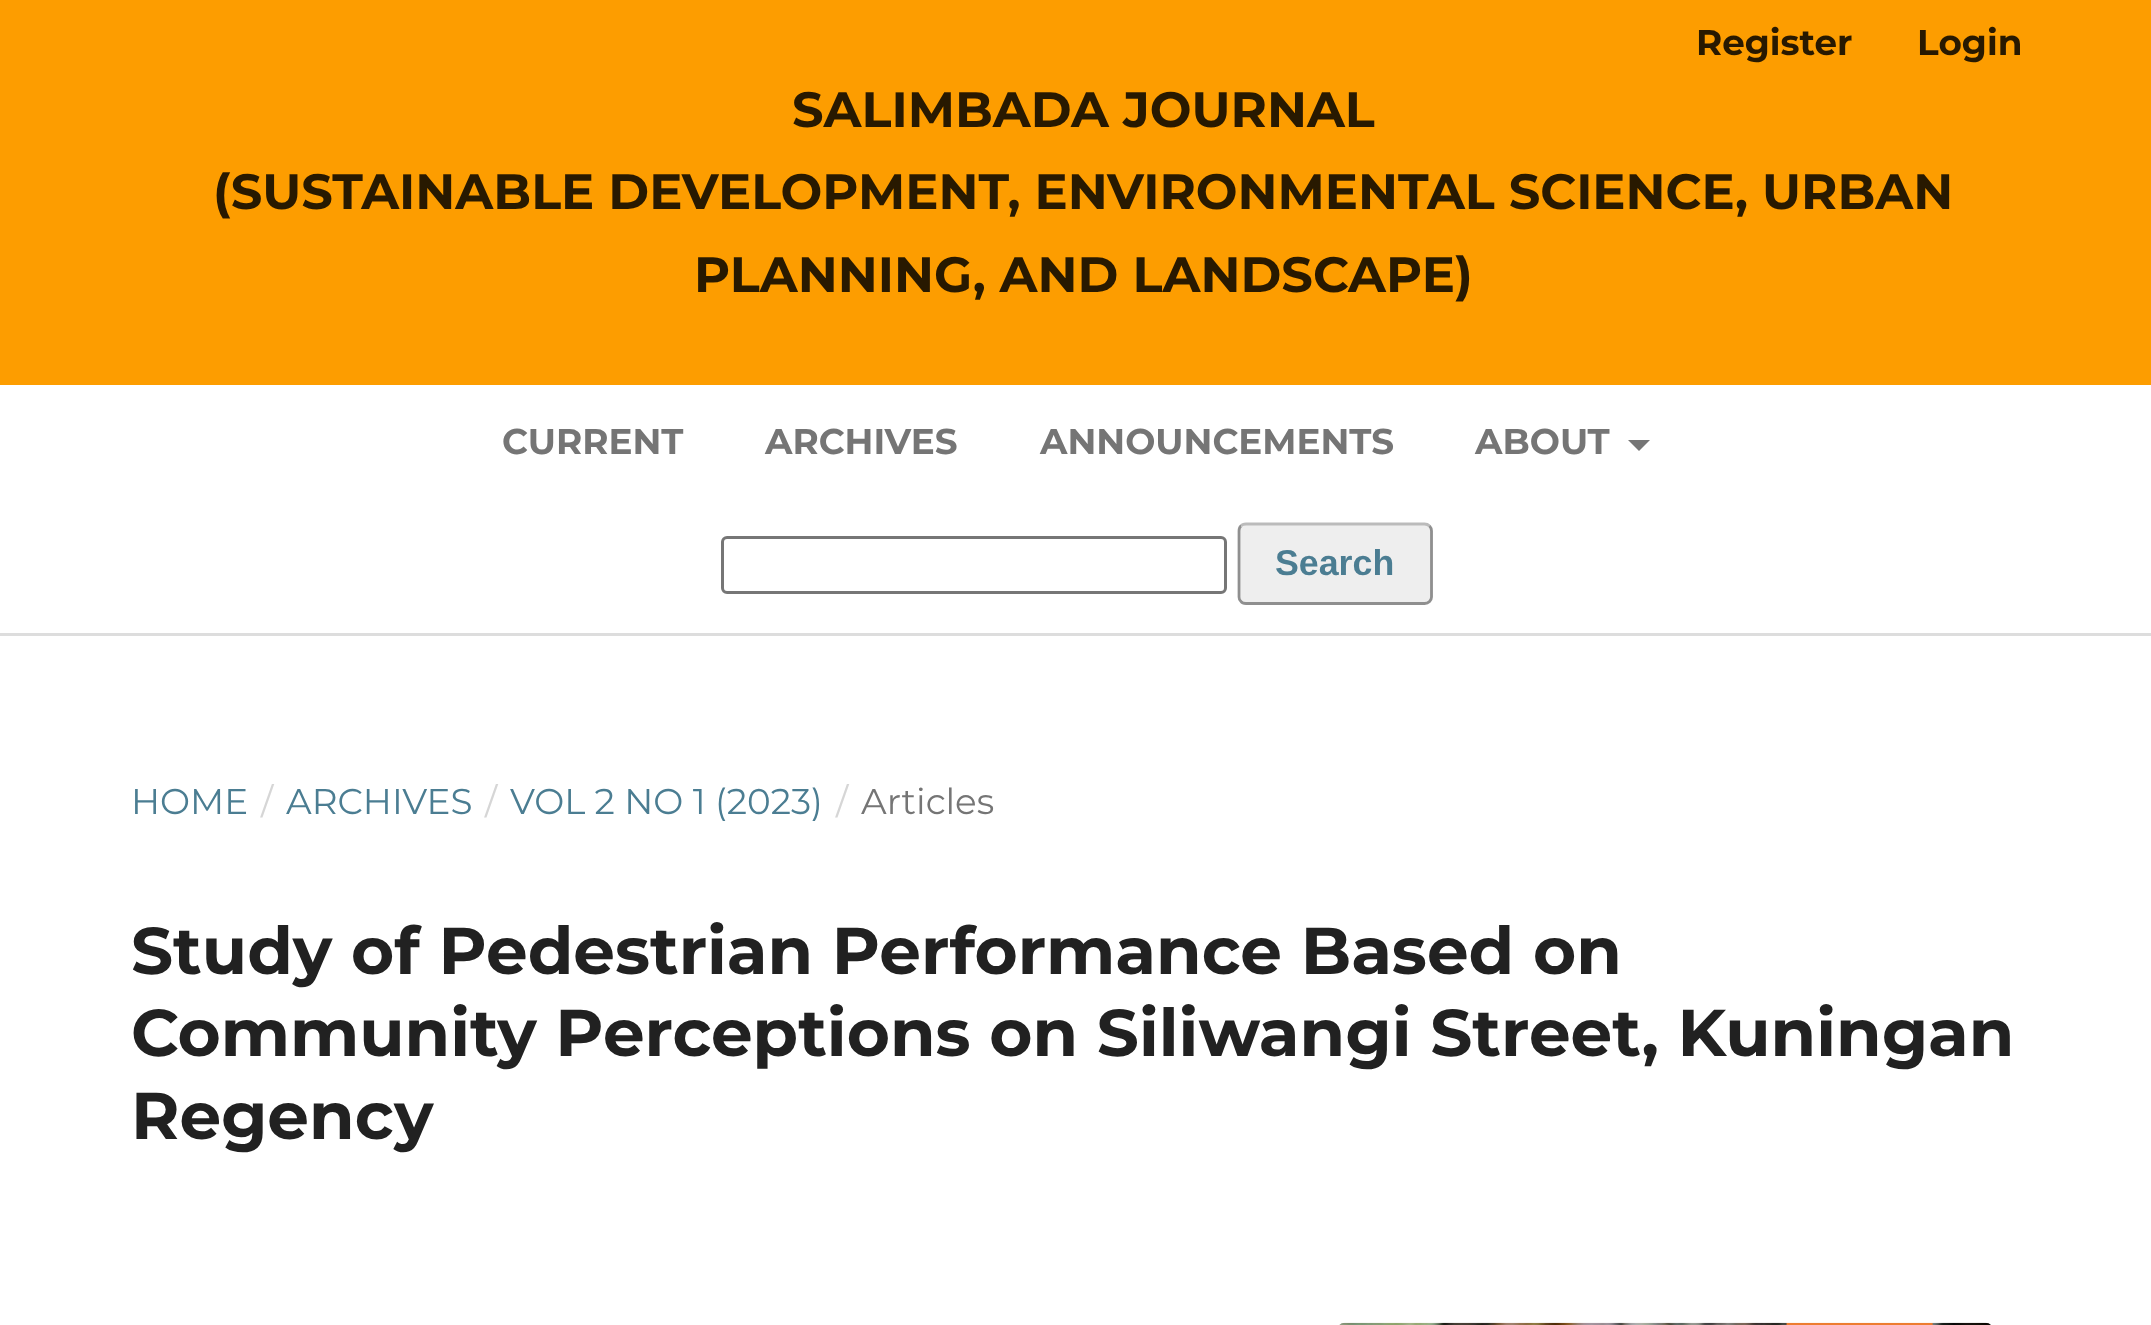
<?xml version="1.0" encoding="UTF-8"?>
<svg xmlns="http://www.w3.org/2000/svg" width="2151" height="1325">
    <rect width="100%" height="100%" fill="#FFFFFF"/>
    <rect x="0" y="0" width="2151" height="385" fill="#FD9D00"/>
    <rect x="0" y="633" width="2151" height="3" fill="#DDDDDD"/>
    <text x="1696" y="55" font-family="Montserrat" font-size="35.75" font-weight="700" fill="#281900">Register</text>
    <text x="1917" y="55" font-family="Montserrat" font-size="35.75" font-weight="700" fill="#281900">Login</text>
    <text x="792" y="127" font-family="Montserrat" font-size="49.5" font-weight="700" fill="#281900">SALIMBADA JOURNAL</text>
    <text x="213" y="209" font-family="Montserrat" font-size="49.5" font-weight="700" fill="#281900">(SUSTAINABLE DEVELOPMENT, ENVIRONMENTAL SCIENCE, URBAN</text>
    <text x="694" y="292" font-family="Montserrat" font-size="49.5" font-weight="700" fill="#281900">PLANNING, AND LANDSCAPE)</text>
    <text x="502" y="454" font-family="Montserrat" font-size="35.75" font-weight="700" fill="#757575">CURRENT</text>
    <text x="765" y="454" font-family="Montserrat" font-size="35.75" font-weight="700" fill="#757575">ARCHIVES</text>
    <text x="1040" y="454" font-family="Montserrat" font-size="35.75" font-weight="700" fill="#757575">ANNOUNCEMENTS</text>
    <text x="1475" y="454" font-family="Montserrat" font-size="35.75" font-weight="700" fill="#757575">ABOUT</text>
    <path d="M 1628 440 H 1650 L 1639 451 Z" fill="#757575"/>
    <rect x="722.5" y="537.5" width="503" height="55" rx="4.5" fill="none" stroke="#767676" stroke-width="3"/>
    <rect x="1238" y="523" width="195" height="82" rx="8" fill="#EEEEEE"/>
    <path d="M 1241 526 C 1242 524.5 1244 524 1246 524 H 1424.5 C 1426.5 524 1428 524.5 1429.5 526" fill="none" stroke="#BBBBBB" stroke-width="2.8"/>
    <path d="M 1429.5 526 C 1430.5 527 1431.5 529 1431.5 531 V 597 C 1431.5 598.5 1430.5 600.5 1429.5 601.5 C 1428 603 1426.5 603.5 1424.5 603.5 H 1246 C 1244 603.5 1242 603 1241 601.5 C 1239.5 600.5 1239 598.5 1239 597 V 531 C 1239 529 1239.5 527 1241 526" fill="none" stroke="#000000" stroke-opacity="0.4" stroke-width="2.8"/>
    <text x="1275" y="575" font-family="Liberation Sans" font-size="35.75" font-weight="700" fill="#4B7D92">Search</text>
    <text x="131" y="814" font-family="Montserrat" font-size="35.75" fill="#4B7D92">HOME</text>
    <text x="261" y="814" font-family="Montserrat" font-size="35.75" fill="#D6D6D6">/</text>
    <text x="286" y="814" font-family="Montserrat" font-size="35.75" fill="#4B7D92">ARCHIVES</text>
    <text x="485" y="814" font-family="Montserrat" font-size="35.75" fill="#D6D6D6">/</text>
    <text x="510" y="814" font-family="Montserrat" font-size="35.75" fill="#4B7D92">VOL 2 NO 1 (2023)</text>
    <text x="836" y="814" font-family="Montserrat" font-size="35.75" fill="#D6D6D6">/</text>
    <text x="861" y="814" font-family="Montserrat" font-size="35.75" fill="#757575">Articles</text>
    <text font-family="Montserrat" font-size="66" font-weight="700" fill="#212121">
        <tspan x="131" y="974">Study of Pedestrian Performance Based on</tspan>
        <tspan x="131" y="1056">Community Perceptions on Siliwangi Street, Kuningan</tspan>
        <tspan x="131" y="1139">Regency</tspan>
    </text>
    <image x="1339" y="1322" width="652" height="3" href="img_01.png"/>
</svg>
